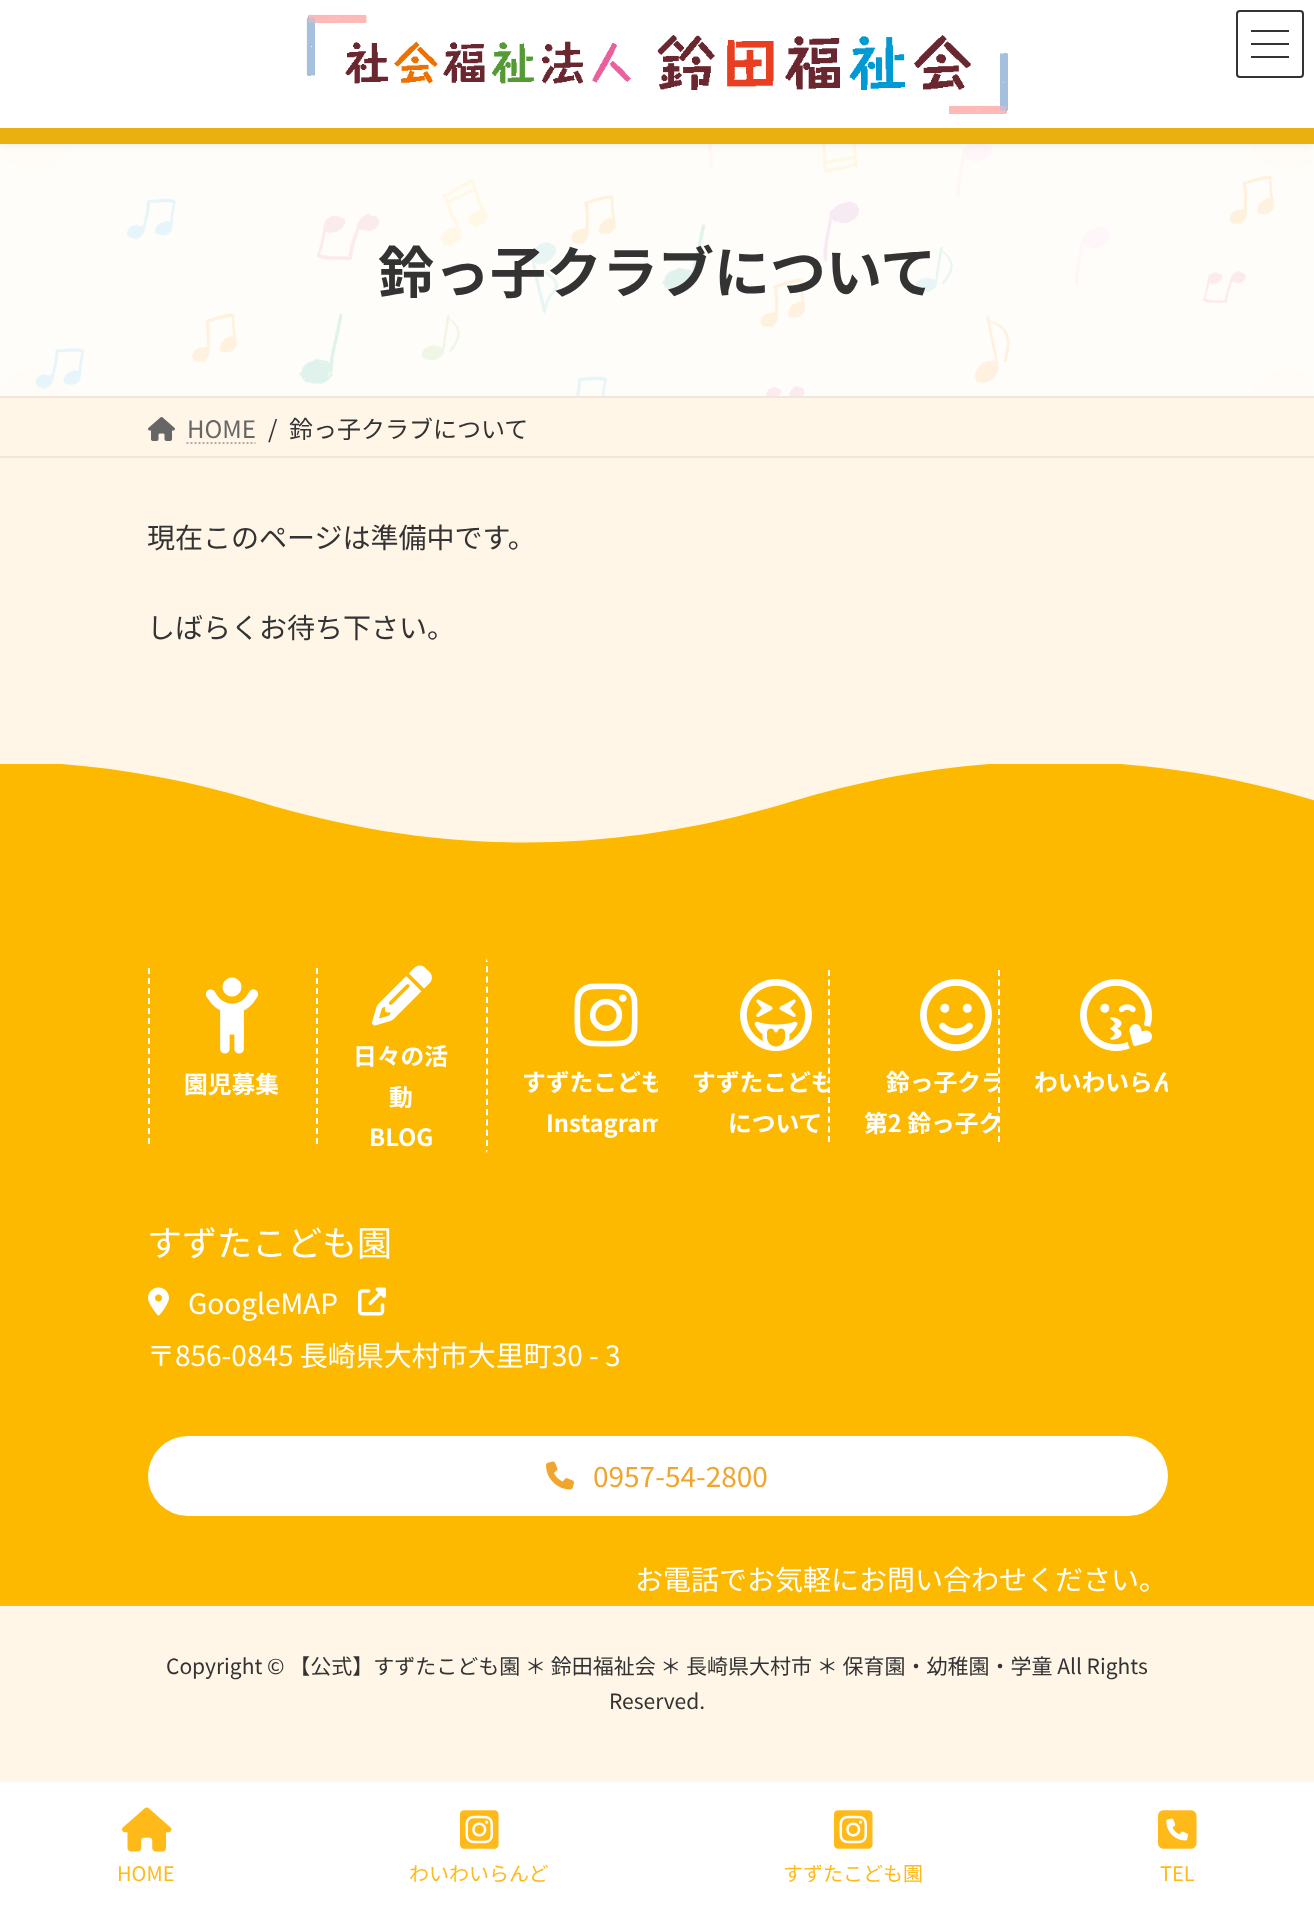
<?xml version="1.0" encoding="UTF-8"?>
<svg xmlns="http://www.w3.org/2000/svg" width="1314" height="1905">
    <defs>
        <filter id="blur1" x="-50%" y="-200%" width="200%" height="500%"><feGaussianBlur stdDeviation="3"/></filter>
        <clipPath id="clip1"><rect x="0" y="764" width="1314" height="200"/></clipPath>
        <clipPath id="clip2"><rect x="318" y="956" width="170" height="200" rx="8"/></clipPath>
        <clipPath id="clip3"><rect x="488" y="956" width="170" height="200" rx="8"/></clipPath>
        <clipPath id="clip4"><rect x="658" y="956" width="170" height="200" rx="8"/></clipPath>
        <clipPath id="clip5"><rect x="828" y="956" width="170" height="200" rx="8"/></clipPath>
        <clipPath id="clip6"><rect x="998" y="956" width="170" height="200" rx="8"/></clipPath>
    </defs>
    <rect width="100%" height="100%" fill="#FFF6E8"/>
    <rect x="0" y="144" width="1314" height="252" fill="#FFFDFA"/>
    <image x="0" y="144" width="1314" height="252" href="img_02.png"/>
    <rect x="0" y="2" width="1314" height="144" fill="#000000" fill-opacity="0.05" filter="url(#blur1)"/>
    <rect x="0" y="0" width="1314" height="128" fill="#FFFFFF"/>
    <image x="306" y="14" width="702" height="100" href="img_01.png"/>
    <rect x="0" y="128" width="1314" height="16" fill="#EAB010"/>
    <rect x="1251" y="30" width="38" height="2" fill="#333333"/>
    <rect x="1251" y="43" width="38" height="2" fill="#333333"/>
    <rect x="1251" y="56" width="38" height="2" fill="#333333"/>
    <rect x="1237" y="11" width="66" height="66" rx="3" fill="none" stroke="#333333" stroke-width="2"/>
    <text x="378" y="293" font-family="Noto Sans JP" font-size="56" font-weight="700" fill="#333333">鈴っ子クラブについて</text>
    <rect x="0" y="396" width="1314" height="2" fill="#F0E7DA"/>
    <rect x="0" y="456" width="1314" height="2" fill="#F0E7DA"/>
    <image x="148" y="417" width="27" height="24" href="img_03.png"/>
    <text x="187" y="438" font-family="Noto Sans JP" font-size="24" fill="#666666">HOME</text>
    <path d="M 186.5 443 H 255.5" fill="none" stroke="#B3ACA2" stroke-width="2" stroke-dasharray="2 2"/>
    <text x="268" y="438" font-family="Noto Sans JP" font-size="24" fill="#333333">/</text>
    <text x="289" y="438" font-family="Noto Sans JP" font-size="24" fill="#333333">鈴っ子クラブについて</text>
    <text x="147" y="548" font-family="Noto Sans JP" font-size="28" fill="#333333">現在このページは準備中です。</text>
    <text x="147" y="638" font-family="Noto Sans JP" font-size="28" fill="#333333">しばらくお待ち下さい。</text>
    <rect x="0" y="764" width="1314" height="840" fill="#FCB900"/>
    <g clip-path="url(#clip1)">
        <path d="M 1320 802 C 1143 748 967 748 790 802 C 613 856 437 856 260 802 C 84 748 -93 748 -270 802 V 762 H 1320 Z" fill="#FFF6E8"/>
    </g>
    <path d="M 317 968 V 1144" fill="none" stroke="#FFFFFF" stroke-width="2" stroke-dasharray="6 4"/>
    <path d="M 149 968 V 1144" fill="none" stroke="#FFFFFF" stroke-width="2" stroke-dasharray="6 4"/>
    <image x="205" y="977" width="54" height="77" href="img_04.png"/>
    <text x="184" y="1093" font-family="Noto Sans JP" font-size="23.75" font-weight="700" fill="#FFFFFF">園児募集</text>
    <g clip-path="url(#clip2)">
        <path d="M 487 956 V 1156" fill="none" stroke="#FFFFFF" stroke-width="2" stroke-dasharray="6 4.22"/>
    </g>
    <image x="372" y="965" width="60" height="61" href="img_05.png"/>
    <text x="353" y="1065" font-family="Noto Sans JP" font-size="23.75" font-weight="700" fill="#FFFFFF">日々の活</text>
    <text x="389" y="1106" font-family="Noto Sans JP" font-size="23.75" font-weight="700" fill="#FFFFFF">動</text>
    <text x="369" y="1146" font-family="Noto Sans JP" font-size="23.75" font-weight="700" fill="#FFFFFF">BLOG</text>
    <image x="574" y="983" width="64" height="64" href="img_06.png"/>
    <g clip-path="url(#clip3)">
        <text x="522" y="1091" font-family="Noto Sans JP" font-size="23.75" font-weight="700" fill="#FFFFFF">すずたこども</text>
        <text x="546" y="1132" font-family="Noto Sans JP" font-size="23.75" font-weight="700" fill="#FFFFFF">Instagram</text>
    </g>
    <image x="740" y="979" width="72" height="72" href="img_07.png"/>
    <g clip-path="url(#clip4)">
        <text x="692" y="1091" font-family="Noto Sans JP" font-size="23.75" font-weight="700" fill="#FFFFFF">すずたこども</text>
    </g>
    <text x="728" y="1132" font-family="Noto Sans JP" font-size="23.75" font-weight="700" fill="#FFFFFF">について</text>
    <path d="M 829 970 V 1142" fill="none" stroke="#FFFFFF" stroke-width="2" stroke-dasharray="6 3.76"/>
    <image x="920" y="979" width="72" height="72" href="img_08.png"/>
    <g clip-path="url(#clip5)">
        <text x="886" y="1091" font-family="Noto Sans JP" font-size="23.75" font-weight="700" fill="#FFFFFF">鈴っ子クラ</text>
    </g>
    <text x="864" y="1132" font-family="Noto Sans JP" font-size="23.75" font-weight="700" fill="#FFFFFF">第2 鈴っ子ク</text>
    <path d="M 999 970 V 1142" fill="none" stroke="#FFFFFF" stroke-width="2" stroke-dasharray="6 3.76"/>
    <image x="1080" y="979" width="72" height="72" href="img_09.png"/>
    <g clip-path="url(#clip6)">
        <text x="1034" y="1091" font-family="Noto Sans JP" font-size="23.75" font-weight="700" fill="#FFFFFF">わいわいらん</text>
    </g>
    <text x="147" y="1256" font-family="Noto Sans JP" font-size="35" fill="#FFFFFF">すずたこども園</text>
    <image x="148" y="1287" width="21" height="29" href="img_10.png"/>
    <text x="188" y="1314" font-family="Noto Sans JP" font-size="28" fill="#FFFFFF">GoogleMAP</text>
    <image x="358" y="1287" width="28" height="29" href="img_11.png"/>
    <text x="147" y="1366" font-family="Noto Sans JP" font-size="28" fill="#FFFFFF">〒856-0845 長崎県大村市大里町30 - 3</text>
    <rect x="148" y="1436" width="1020" height="80" rx="40" fill="#FFFFFF"/>
    <image x="546" y="1461" width="28" height="29" href="img_12.png"/>
    <text x="593" y="1487" font-family="Noto Sans JP" font-size="28" fill="#F0A52E">0957-54-2800</text>
    <text x="635" y="1590" font-family="Noto Sans JP" font-size="28" fill="#FFFFFF">お電話でお気軽にお問い合わせください。</text>
    <rect x="0" y="1604" width="1314" height="2" fill="#FCBC0C"/>
    <text x="166" y="1674" font-family="Noto Sans JP" font-size="21" fill="#333333">Copyright © 【公式】すずたこども園 ＊ 鈴田福祉会 ＊ 長崎県大村市 ＊ 保育園・幼稚園・学童 All Rights</text>
    <text x="609" y="1709" font-family="Noto Sans JP" font-size="21" fill="#333333">Reserved.</text>
    <rect x="0" y="1782" width="1314" height="123" fill="#FFFFFF"/>
    <image x="122" y="1807" width="50" height="45" href="img_13.png"/>
    <text x="117" y="1881" font-family="Noto Sans JP" font-size="20" fill="#FFBA1A">HOME</text>
    <image x="460" y="1810" width="39" height="39" href="img_14.png"/>
    <text x="409" y="1881" font-family="Noto Sans JP" font-size="20" fill="#FFBA1A">わいわいらんど</text>
    <image x="834" y="1810" width="39" height="39" href="img_14.png"/>
    <text x="783" y="1881" font-family="Noto Sans JP" font-size="20" fill="#FFBA1A">すずたこども園</text>
    <image x="1158" y="1810" width="39" height="39" href="img_15.png"/>
    <text x="1160" y="1881" font-family="Noto Sans JP" font-size="20" fill="#FFBA1A">TEL</text>
</svg>
